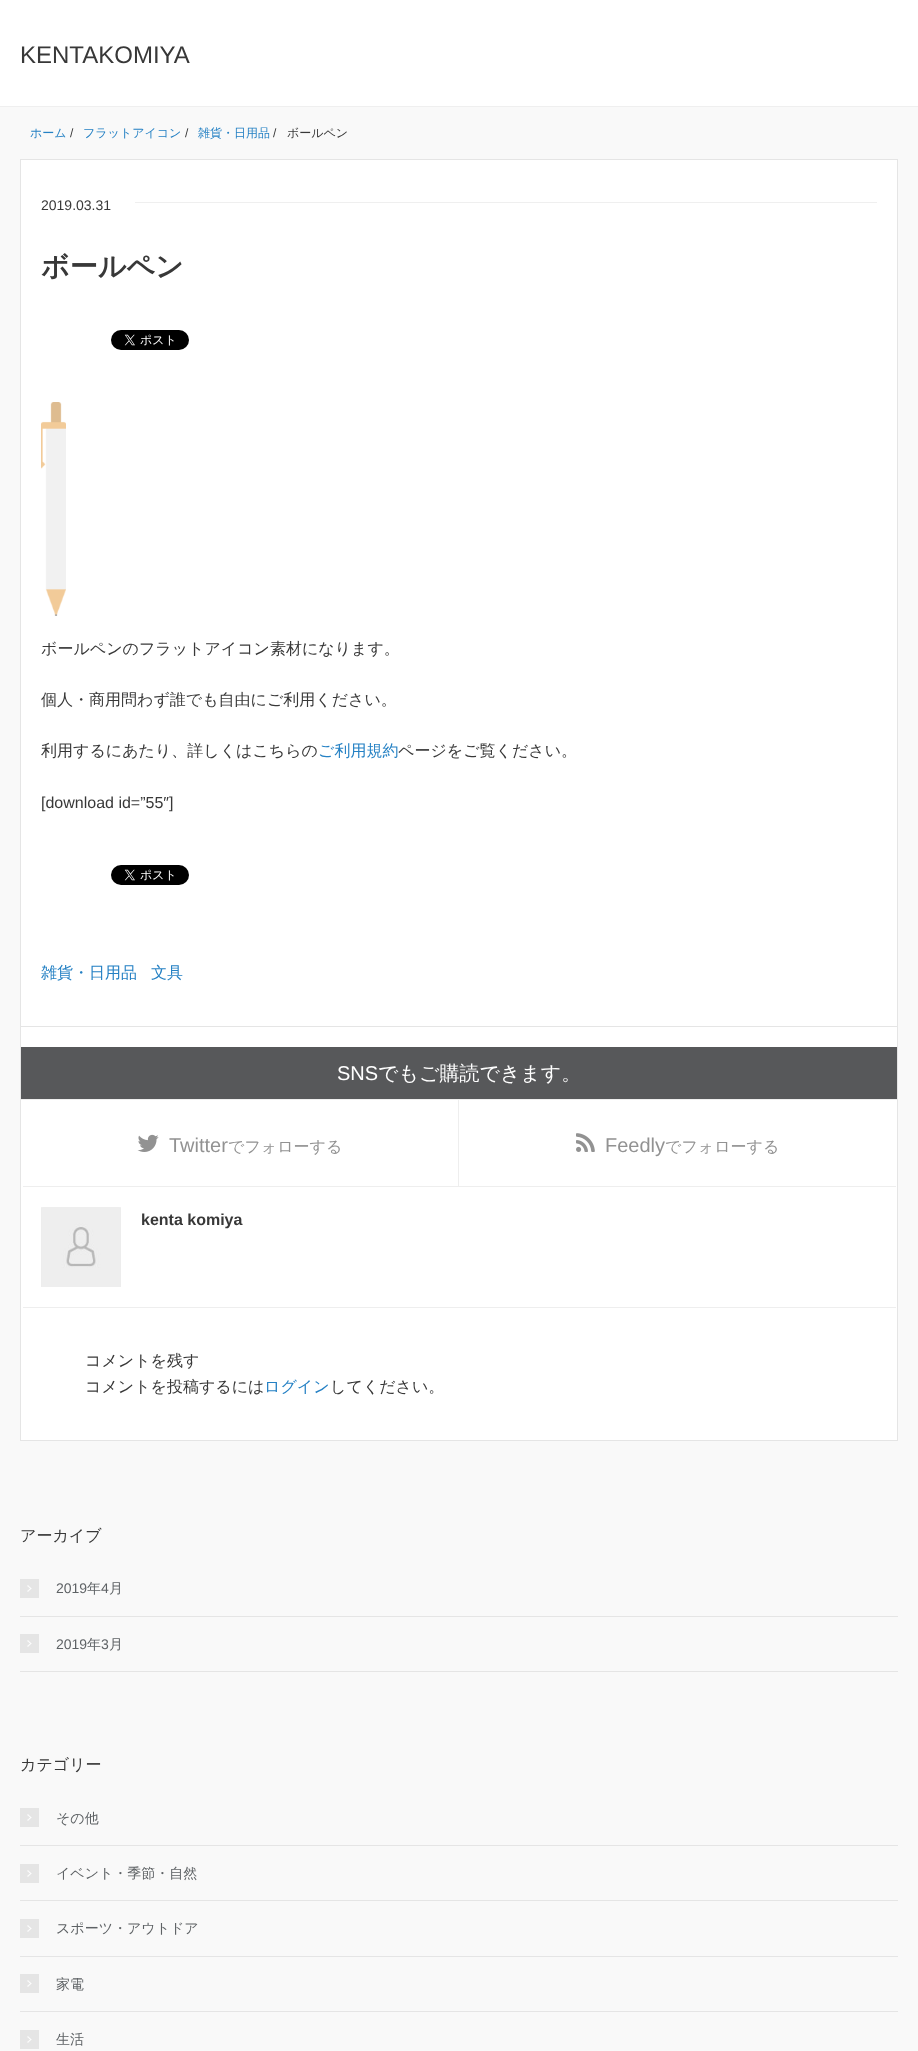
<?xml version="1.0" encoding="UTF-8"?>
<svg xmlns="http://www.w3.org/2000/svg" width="918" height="2051">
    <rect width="100%" height="100%" fill="#F9F9F9"/>
    <rect x="0" y="0" width="918" height="106" fill="#FFFFFF"/>
    <rect x="0" y="106" width="918" height="1" fill="#EFEFEF"/>
    <text x="20" y="63" font-family="Liberation Sans" font-size="24" fill="#383838">KENTAKOMIYA</text>
    <text x="30" y="137" font-family="WenQuanYi Zen Hei" font-size="12" font-weight="500" fill="#2581C4">ホーム</text>
    <text x="70" y="137" font-family="Liberation Sans" font-size="12" fill="#383838">/</text>
    <text x="83" y="137" font-family="WenQuanYi Zen Hei" font-size="12" font-weight="500" fill="#2581C4">フラットアイコン</text>
    <text x="185" y="137" font-family="Liberation Sans" font-size="12" fill="#383838">/</text>
    <text x="198" y="137" font-family="WenQuanYi Zen Hei" font-size="12" font-weight="500" fill="#2581C4">雑貨・日用品</text>
    <text x="273" y="137" font-family="Liberation Sans" font-size="12" fill="#383838">/</text>
    <text x="287" y="137" font-family="WenQuanYi Zen Hei" font-size="12" font-weight="500" fill="#383838">ボールペン</text>
    <rect x="20.5" y="159.5" width="877" height="1281" fill="#FFFFFF" stroke="#E5E5E5"/>
    <rect x="135" y="202" width="742" height="1" fill="#EFEFEF"/>
    <text x="41" y="210" font-family="Liberation Sans" font-size="14" fill="#383838">2019.03.31</text>
    <text x="41" y="276" font-family="WenQuanYi Zen Hei" font-size="28" font-weight="700" fill="#383838">ボールペン</text>
    <image x="111" y="330" width="78" height="20" href="img_01.png"/>
    <image x="41" y="402" width="25" height="214" href="img_02.png"/>
    <text x="41" y="654" font-family="WenQuanYi Zen Hei" font-size="16" font-weight="500" fill="#383838">ボールペンのフラットアイコン素材になります。</text>
    <text x="41" y="705" font-family="WenQuanYi Zen Hei" font-size="16" font-weight="500" fill="#383838">個人・商用問わず誰でも自由にご利用ください。</text>
    <text x="41" y="756" font-family="WenQuanYi Zen Hei" font-size="16" font-weight="500" fill="#383838">利用するにあたり、詳しくはこちらの</text>
    <text x="318" y="756" font-family="WenQuanYi Zen Hei" font-size="16" font-weight="500" fill="#2581C4">ご利用規約</text>
    <text x="398" y="756" font-family="WenQuanYi Zen Hei" font-size="16" font-weight="500" fill="#383838">ページをご覧ください。</text>
    <text x="41" y="808" font-family="Liberation Sans" font-size="16" fill="#383838">[download id=”55″]</text>
    <image x="111" y="865" width="78" height="20" href="img_01.png"/>
    <text x="41" y="978" font-family="WenQuanYi Zen Hei" font-size="16" font-weight="500" fill="#2581C4">雑貨・日用品</text>
    <text x="151" y="978" font-family="WenQuanYi Zen Hei" font-size="16" font-weight="500" fill="#2581C4">文具</text>
    <rect x="21" y="1026" width="876" height="1" fill="#E5E5E5"/>
    <rect x="21" y="1047" width="876" height="52" fill="#57585A"/>
    <text x="337" y="1080" font-family="Liberation Sans" font-size="20" fill="#FFFFFF">SNS</text>
    <text x="378" y="1080" font-family="WenQuanYi Zen Hei" font-size="20" font-weight="500" fill="#FFFFFF">でもご購読できます。</text>
    <rect x="21" y="1099" width="876" height="1" fill="#EEEEEE"/>
    <rect x="458" y="1100" width="1" height="86" fill="#EEEEEE"/>
    <image x="137" y="1134" width="22" height="18" href="img_03.png"/>
    <text x="169" y="1152" font-family="Liberation Sans" font-size="20" fill="#929292">Twitter</text>
    <text x="228" y="1152" font-family="WenQuanYi Zen Hei" font-size="16" font-weight="500" fill="#929292">でフォローする</text>
    <image x="576" y="1133" width="19" height="19" href="img_04.png"/>
    <text x="605" y="1152" font-family="Liberation Sans" font-size="20" fill="#929292">Feedly</text>
    <text x="665" y="1152" font-family="WenQuanYi Zen Hei" font-size="16" font-weight="500" fill="#929292">でフォローする</text>
    <rect x="23" y="1186" width="873" height="1" fill="#EEEEEE"/>
    <rect x="23" y="1307" width="873" height="1" fill="#EEEEEE"/>
    <image x="41" y="1207" width="80" height="80" href="img_05.png"/>
    <text x="141" y="1225" font-family="Liberation Sans" font-size="16" font-weight="700" fill="#383838">kenta komiya</text>
    <text font-family="WenQuanYi Zen Hei" font-size="16" font-weight="500" fill="#383838">
        <tspan x="85" y="1366">コメントを残す</tspan>
        <tspan x="85" y="1392">コメントを投稿するには</tspan>
    </text>
    <text x="264" y="1392" font-family="WenQuanYi Zen Hei" font-size="16" font-weight="500" fill="#2581C4">ログイン</text>
    <text x="330" y="1392" font-family="WenQuanYi Zen Hei" font-size="16" font-weight="500" fill="#383838">してください。</text>
    <text x="20" y="1541" font-family="WenQuanYi Zen Hei" font-size="16" font-weight="500" fill="#383838">アーカイブ</text>
    <rect x="20" y="1616" width="878" height="1" fill="#E5E5E5"/>
    <image x="20" y="1579" width="19" height="19" href="img_06.png"/>
    <text x="56" y="1593" font-family="Liberation Sans" font-size="14" fill="#5E6265">2019</text>
    <text x="87" y="1593" font-family="WenQuanYi Zen Hei" font-size="14" font-weight="500" fill="#5E6265">年</text>
    <text x="101" y="1593" font-family="Liberation Sans" font-size="14" fill="#5E6265">4</text>
    <text x="109" y="1593" font-family="WenQuanYi Zen Hei" font-size="14" font-weight="500" fill="#5E6265">月</text>
    <rect x="20" y="1671" width="878" height="1" fill="#E5E5E5"/>
    <image x="20" y="1634" width="19" height="19" href="img_06.png"/>
    <text x="56" y="1649" font-family="Liberation Sans" font-size="14" fill="#5E6265">2019</text>
    <text x="87" y="1649" font-family="WenQuanYi Zen Hei" font-size="14" font-weight="500" fill="#5E6265">年</text>
    <text x="101" y="1649" font-family="Liberation Sans" font-size="14" fill="#5E6265">3</text>
    <text x="109" y="1649" font-family="WenQuanYi Zen Hei" font-size="14" font-weight="500" fill="#5E6265">月</text>
    <text x="20" y="1770" font-family="WenQuanYi Zen Hei" font-size="16" font-weight="500" fill="#383838">カテゴリー</text>
    <rect x="20" y="1845" width="878" height="1" fill="#E5E5E5"/>
    <image x="20" y="1808" width="19" height="19" href="img_06.png"/>
    <text x="56" y="1823" font-family="WenQuanYi Zen Hei" font-size="14" font-weight="500" fill="#5E6265">その他</text>
    <rect x="20" y="1900" width="878" height="1" fill="#E5E5E5"/>
    <image x="20" y="1864" width="19" height="19" href="img_06.png"/>
    <text x="56" y="1878" font-family="WenQuanYi Zen Hei" font-size="14" font-weight="500" fill="#5E6265">イベント・季節・自然</text>
    <rect x="20" y="1956" width="878" height="1" fill="#E5E5E5"/>
    <image x="20" y="1919" width="19" height="19" href="img_06.png"/>
    <text x="56" y="1933" font-family="WenQuanYi Zen Hei" font-size="14" font-weight="500" fill="#5E6265">スポーツ・アウトドア</text>
    <rect x="20" y="2011" width="878" height="1" fill="#E5E5E5"/>
    <image x="20" y="1974" width="19" height="19" href="img_06.png"/>
    <text x="56" y="1989" font-family="WenQuanYi Zen Hei" font-size="14" font-weight="500" fill="#5E6265">家電</text>
    <image x="20" y="2030" width="19" height="19" href="img_06.png"/>
    <text x="56" y="2044" font-family="WenQuanYi Zen Hei" font-size="14" font-weight="500" fill="#5E6265">生活</text>
</svg>
